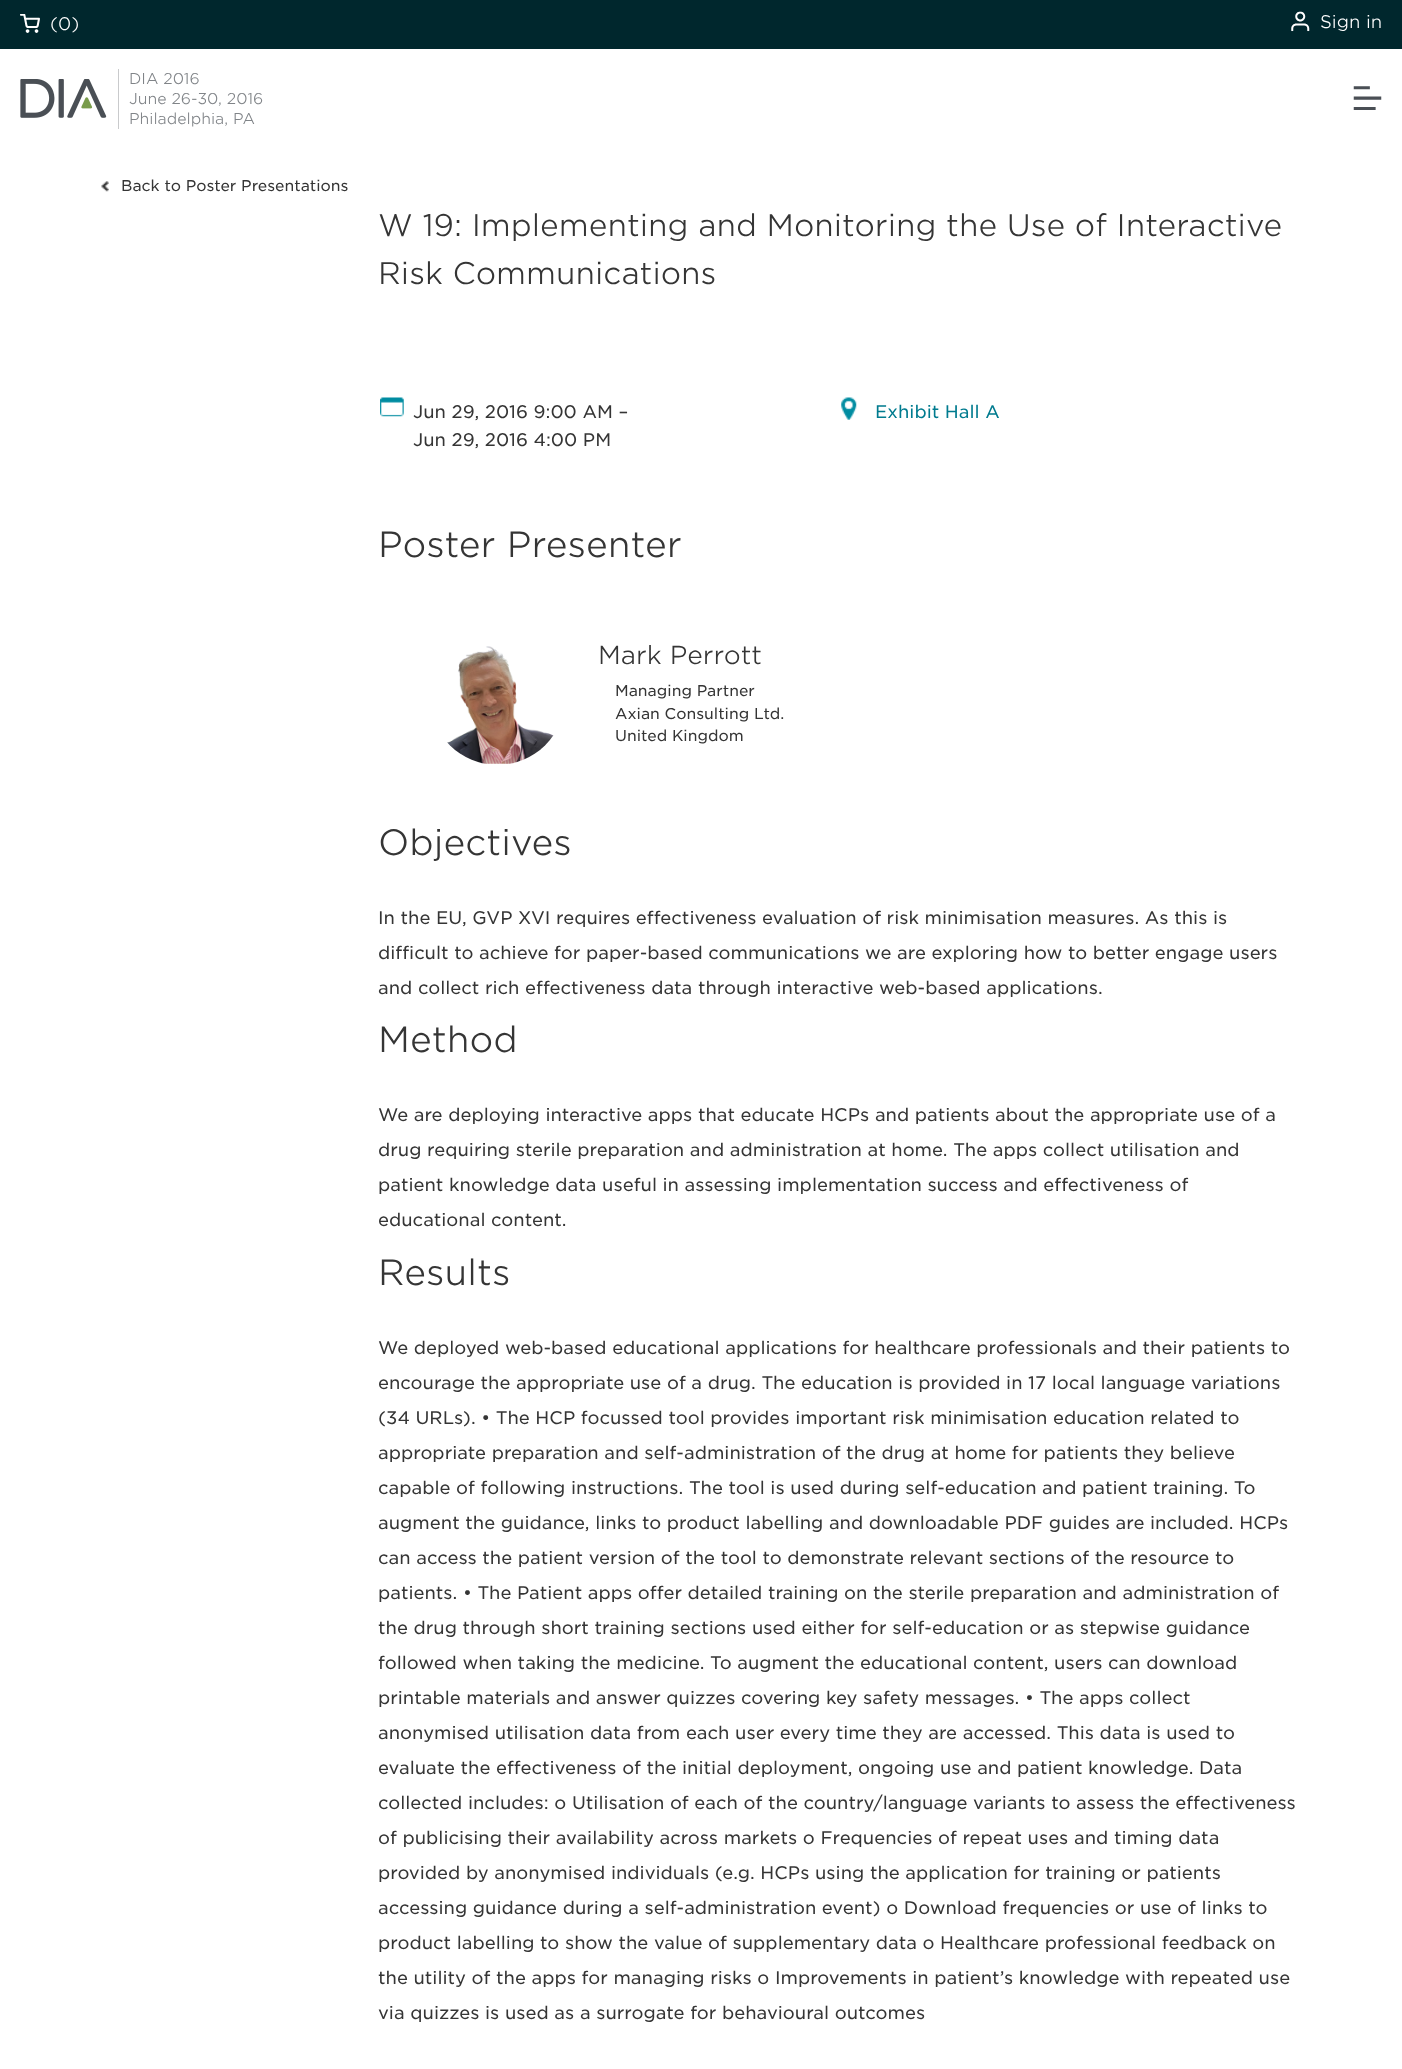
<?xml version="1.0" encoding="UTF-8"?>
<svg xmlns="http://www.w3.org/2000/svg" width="1402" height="2069">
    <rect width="100%" height="100%" fill="#FFFFFF"/>
    <rect x="0" y="0" width="1402" height="49" fill="#00272D"/>
    <image x="20" y="14" width="20" height="19" href="img_01.png"/>
    <text x="50" y="30" font-family="'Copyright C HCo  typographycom'" font-size="17.5" font-weight="300" fill="#FFFFFF">(0)</text>
    <image x="1291" y="11" width="19" height="21" href="img_02.png"/>
    <text x="1320" y="28" font-family="'Copyright C HCo  typographycom'" font-size="17.5" font-weight="300" fill="#FFFFFF">Sign in</text>
    <image x="20" y="79" width="87" height="39" href="img_03.png"/>
    <rect x="118" y="69" width="1" height="60" fill="#C9CACC"/>
    <text font-family="'Copyright C HCo  typographycom'" font-size="15" font-weight="300" fill="#808488">
        <tspan x="129" y="84">DIA 2016</tspan>
        <tspan x="129" y="104">June 26-30, 2016</tspan>
        <tspan x="129" y="124">Philadelphia, PA</tspan>
    </text>
    <image x="1353" y="86" width="29" height="24" href="img_04.png"/>
    <image x="101" y="181" width="8" height="11" href="img_05.png"/>
    <text x="121" y="191" font-family="'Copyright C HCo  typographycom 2'" font-size="15" font-weight="300" fill="#353535">Back to Poster Presentations</text>
    <text font-family="'Copyright C HCo  typographycom'" font-size="30" font-weight="300" fill="#353535">
        <tspan x="378" y="236">W 19: Implementing and Monitoring the Use of Interactive</tspan>
        <tspan x="378" y="284">Risk Communications</tspan>
    </text>
    <image x="380" y="397" width="24" height="20" href="img_06.png"/>
    <text font-family="'Copyright C HCo  typographycom 2'" font-size="17.5" font-weight="300" fill="#353535">
        <tspan x="413" y="418">Jun 29, 2016 9:00 AM –</tspan>
        <tspan x="413" y="446">Jun 29, 2016 4:00 PM</tspan>
    </text>
    <image x="841" y="397" width="16" height="23" href="img_07.png"/>
    <text x="875" y="418" font-family="'Copyright C HCo  typographycom 2'" font-size="17.5" font-weight="300" fill="#007B8F">Exhibit Hall A</text>
    <text x="378" y="557" font-family="'Copyright C HCo  typographycom'" font-size="35" font-weight="300" fill="#353535">Poster Presenter</text>
    <image x="447" y="646" width="107" height="118" href="img_08.png"/>
    <text x="598" y="664" font-family="'Copyright C HCo  typographycom'" font-size="25" font-weight="300" fill="#353535">Mark Perrott</text>
    <text font-family="'Copyright C HCo  typographycom 2'" font-size="15" font-weight="300" fill="#353535">
        <tspan x="615" y="696">Managing Partner</tspan>
        <tspan x="615" y="719">Axian Consulting Ltd.</tspan>
        <tspan x="615" y="741">United Kingdom</tspan>
    </text>
    <text x="378" y="855" font-family="'Copyright C HCo  typographycom'" font-size="35" font-weight="300" fill="#353535">Objectives</text>
    <text x="378" y="924" font-family="'Copyright C HCo  typographycom 2'" font-size="17.5" font-weight="300" fill="#353535">In the EU, GVP XVI requires effectiveness evaluation of risk minimisation measures. As this is</text>
    <text x="378" y="959" font-family="'Copyright C HCo  typographycom 2'" font-size="17.5" font-weight="300" fill="#353535">difficult to achieve for paper-based communications we are exploring how to better engage users</text>
    <text x="378" y="994" font-family="'Copyright C HCo  typographycom 2'" font-size="17.5" font-weight="300" fill="#353535">and collect rich effectiveness data through interactive web-based applications.</text>
    <text x="378" y="1052" font-family="'Copyright C HCo  typographycom'" font-size="35" font-weight="300" fill="#353535">Method</text>
    <text x="378" y="1121" font-family="'Copyright C HCo  typographycom 2'" font-size="17.5" font-weight="300" fill="#353535">We are deploying interactive apps that educate HCPs and patients about the appropriate use of a</text>
    <text x="378" y="1156" font-family="'Copyright C HCo  typographycom 2'" font-size="17.5" font-weight="300" fill="#353535">drug requiring sterile preparation and administration at home. The apps collect utilisation and</text>
    <text x="378" y="1191" font-family="'Copyright C HCo  typographycom 2'" font-size="17.5" font-weight="300" fill="#353535">patient knowledge data useful in assessing implementation success and effectiveness of</text>
    <text x="378" y="1226" font-family="'Copyright C HCo  typographycom 2'" font-size="17.5" font-weight="300" fill="#353535">educational content.</text>
    <text x="378" y="1285" font-family="'Copyright C HCo  typographycom'" font-size="35" font-weight="300" fill="#353535">Results</text>
    <text x="378" y="1354" font-family="'Copyright C HCo  typographycom 2'" font-size="17.5" font-weight="300" fill="#353535">We deployed web-based educational applications for healthcare professionals and their patients to</text>
    <text x="378" y="1389" font-family="'Copyright C HCo  typographycom 2'" font-size="17.5" font-weight="300" fill="#353535">encourage the appropriate use of a drug. The education is provided in 17 local language variations</text>
    <text x="378" y="1424" font-family="'Copyright C HCo  typographycom 2'" font-size="17.5" font-weight="300" fill="#353535">(34 URLs). • The HCP focussed tool provides important risk minimisation education related to</text>
    <text x="378" y="1459" font-family="'Copyright C HCo  typographycom 2'" font-size="17.5" font-weight="300" fill="#353535">appropriate preparation and self-administration of the drug at home for patients they believe</text>
    <text x="378" y="1494" font-family="'Copyright C HCo  typographycom 2'" font-size="17.5" font-weight="300" fill="#353535">capable of following instructions. The tool is used during self-education and patient training. To</text>
    <text x="378" y="1529" font-family="'Copyright C HCo  typographycom 2'" font-size="17.5" font-weight="300" fill="#353535">augment the guidance, links to product labelling and downloadable PDF guides are included. HCPs</text>
    <text x="378" y="1564" font-family="'Copyright C HCo  typographycom 2'" font-size="17.5" font-weight="300" fill="#353535">can access the patient version of the tool to demonstrate relevant sections of the resource to</text>
    <text x="378" y="1599" font-family="'Copyright C HCo  typographycom 2'" font-size="17.5" font-weight="300" fill="#353535">patients. • The Patient apps offer detailed training on the sterile preparation and administration of</text>
    <text x="378" y="1634" font-family="'Copyright C HCo  typographycom 2'" font-size="17.5" font-weight="300" fill="#353535">the drug through short training sections used either for self-education or as stepwise guidance</text>
    <text x="378" y="1669" font-family="'Copyright C HCo  typographycom 2'" font-size="17.5" font-weight="300" fill="#353535">followed when taking the medicine. To augment the educational content, users can download</text>
    <text x="378" y="1704" font-family="'Copyright C HCo  typographycom 2'" font-size="17.5" font-weight="300" fill="#353535">printable materials and answer quizzes covering key safety messages. • The apps collect</text>
    <text x="378" y="1739" font-family="'Copyright C HCo  typographycom 2'" font-size="17.5" font-weight="300" fill="#353535">anonymised utilisation data from each user every time they are accessed. This data is used to</text>
    <text x="378" y="1774" font-family="'Copyright C HCo  typographycom 2'" font-size="17.5" font-weight="300" fill="#353535">evaluate the effectiveness of the initial deployment, ongoing use and patient knowledge. Data</text>
    <text x="378" y="1809" font-family="'Copyright C HCo  typographycom 2'" font-size="17.5" font-weight="300" fill="#353535">collected includes: o Utilisation of each of the country/language variants to assess the effectiveness</text>
    <text x="378" y="1844" font-family="'Copyright C HCo  typographycom 2'" font-size="17.5" font-weight="300" fill="#353535">of publicising their availability across markets o Frequencies of repeat uses and timing data</text>
    <text x="378" y="1879" font-family="'Copyright C HCo  typographycom 2'" font-size="17.5" font-weight="300" fill="#353535">provided by anonymised individuals (e.g. HCPs using the application for training or patients</text>
    <text x="378" y="1914" font-family="'Copyright C HCo  typographycom 2'" font-size="17.5" font-weight="300" fill="#353535">accessing guidance during a self-administration event) o Download frequencies or use of links to</text>
    <text x="378" y="1949" font-family="'Copyright C HCo  typographycom 2'" font-size="17.5" font-weight="300" fill="#353535">product labelling to show the value of supplementary data o Healthcare professional feedback on</text>
    <text x="378" y="1984" font-family="'Copyright C HCo  typographycom 2'" font-size="17.5" font-weight="300" fill="#353535">the utility of the apps for managing risks o Improvements in patient’s knowledge with repeated use</text>
    <text x="378" y="2019" font-family="'Copyright C HCo  typographycom 2'" font-size="17.5" font-weight="300" fill="#353535">via quizzes is used as a surrogate for behavioural outcomes</text>
</svg>
